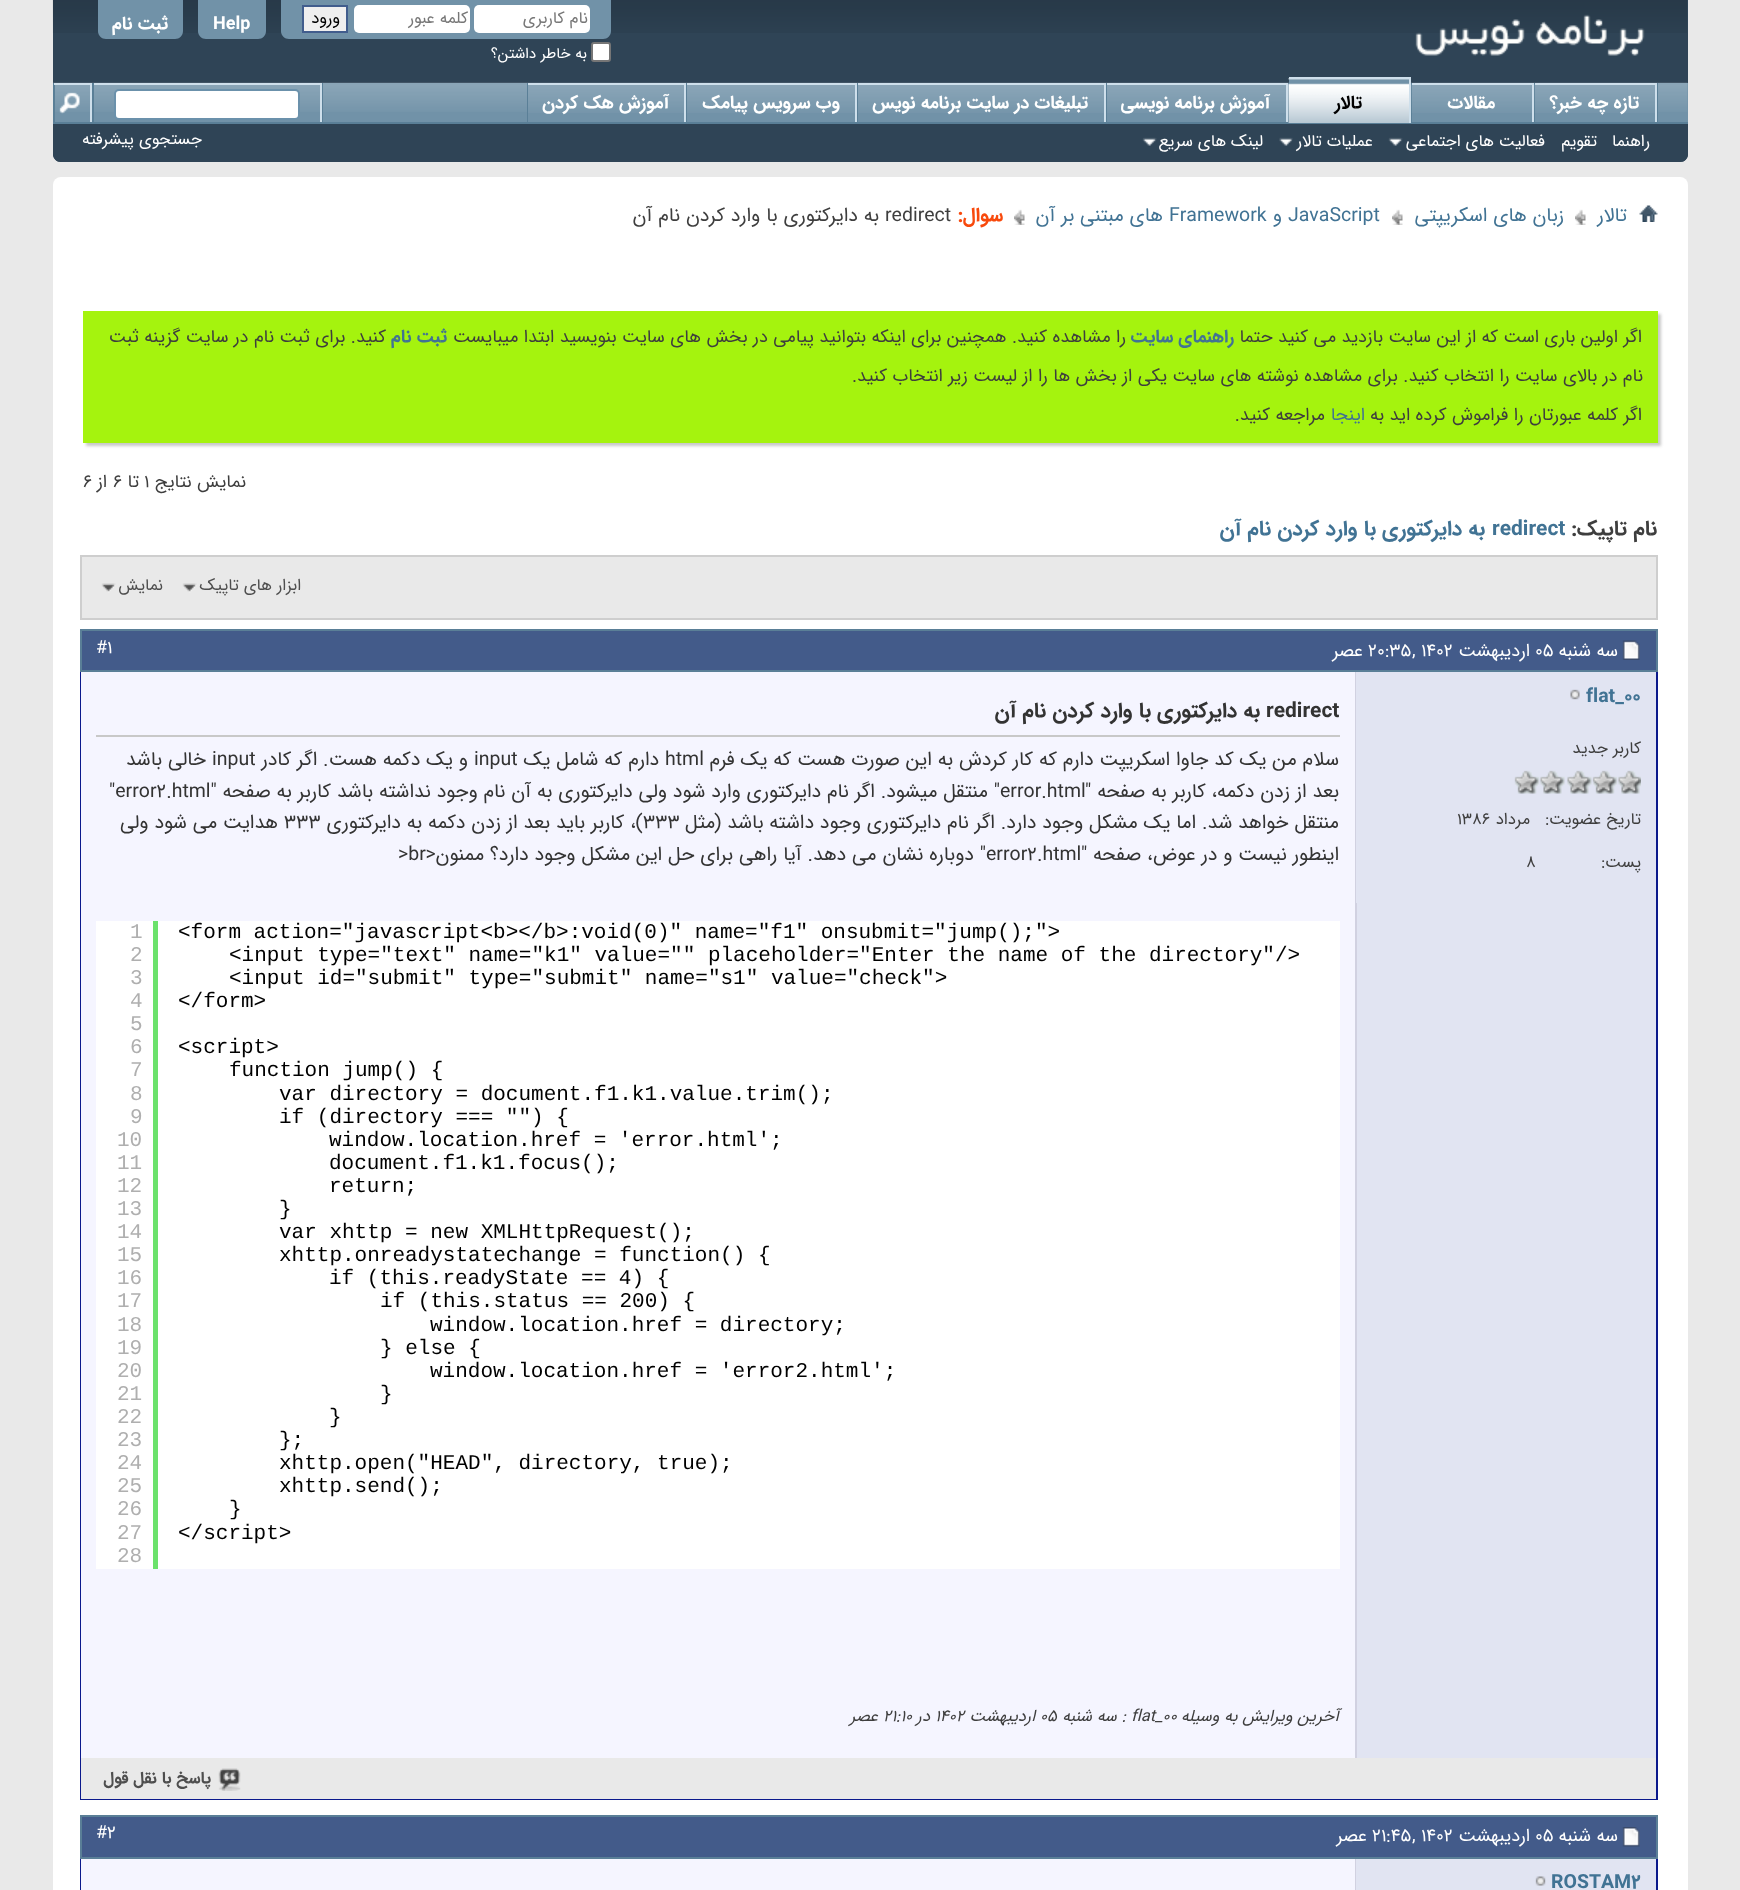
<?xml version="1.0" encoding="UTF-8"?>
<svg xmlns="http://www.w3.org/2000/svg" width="1740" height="1890">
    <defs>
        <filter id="blur1" x="-50%" y="-200%" width="200%" height="500%"><feGaussianBlur stdDeviation="1.5"/></filter>
    </defs>
    <rect width="100%" height="100%" fill="#E9E9E9"/>
    <path d="M 53 0 H 1688 V 154 C 1688 158.5 1684.5 162 1680 162 H 61 C 56.5 162 53 158.5 53 154 Z" fill="#2F4456"/>
    <image x="52" y="0" width="1635" height="33" href="img_01.png"/>
    <image x="1415" y="14" width="230" height="42" href="img_02.png"/>
    <path d="M 281 0 H 611 V 31 C 611 35.5 607.5 39 603 39 H 289 C 284.5 39 281 35.5 281 31 Z" fill="#7192A8"/>
    <rect x="474" y="5" width="116" height="28" rx="5" fill="#FFFFFF"/>
    <text x="588" y="23" font-family="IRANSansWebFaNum" font-size="16.5" direction="rtl" fill="#777777">نام کاربری</text>
    <rect x="354" y="5" width="116" height="28" rx="5" fill="#FFFFFF"/>
    <text x="468" y="23" font-family="IRANSansWebFaNum" font-size="16.5" direction="rtl" fill="#777777">کلمه عبور</text>
    <rect x="303" y="6" width="44" height="26" fill="#EFEFEF" stroke="#415D8D" stroke-width="2"/>
    <text x="340" y="23" font-family="IRANSansWebFaNum" font-size="16.5" direction="rtl" fill="#000000">ورود</text>
    <rect x="592" y="43" width="18" height="18" rx="2" fill="#FFFFFF" stroke="#767676" stroke-width="2"/>
    <text x="587" y="58" font-family="IRANSansWebFaNum" font-size="15" direction="rtl" fill="#FFFFFF">به خاطر داشتن؟</text>
    <path d="M 198 0 H 266 V 31 C 266 35.5 262.5 39 258 39 H 206 C 201.5 39 198 35.5 198 31 Z" fill="#7192A8"/>
    <text x="213" y="29" font-family="IRANSansWebFaNum" font-size="18" font-weight="700" fill="#FFFFFF">Help</text>
    <path d="M 98 0 H 183 V 31 C 183 35.5 179.5 39 175 39 H 106 C 101.5 39 98 35.5 98 31 Z" fill="#7192A8"/>
    <text x="168" y="29" font-family="IRANSansWebFaNum" font-size="18" font-weight="700" direction="rtl" fill="#FFFFFF">ثبت نام</text>
    <path d="M 53 83 H 1688 V 154 C 1688 158.5 1684.5 162 1680 162 H 61 C 56.5 162 53 158.5 53 154 Z" fill="#2F4456"/>
    <rect x="55" y="83" width="1633" height="39" fill="#7192A8"/>
    <image x="53" y="82" width="1635" height="30" href="img_03.png"/>
    <rect x="1657" y="83" width="1" height="40" fill="#5A7F97"/>
    <rect x="1534" y="83" width="1" height="40" fill="#5A7F97"/>
    <rect x="1535" y="85" width="120" height="27" fill="#7192A8"/>
    <image x="1534" y="84" width="121" height="29" href="img_04.png"/>
    <rect x="1535" y="83" width="121" height="2" fill="#CEDFEB"/>
    <rect x="1655" y="83" width="2" height="40" fill="#CEDFEB"/>
    <text x="1639" y="108" font-family="IRANSansWebFaNum" font-size="18" font-weight="700" direction="rtl" fill="#FFFFFF">تازه چه خبر؟</text>
    <rect x="1411" y="83" width="1" height="40" fill="#5A7F97"/>
    <rect x="1412" y="85" width="120" height="27" fill="#7192A8"/>
    <image x="1411" y="84" width="121" height="29" href="img_04.png"/>
    <rect x="1412" y="83" width="121" height="2" fill="#CEDFEB"/>
    <rect x="1532" y="83" width="2" height="40" fill="#CEDFEB"/>
    <text x="1495" y="108" font-family="IRANSansWebFaNum" font-size="18" font-weight="700" direction="rtl" fill="#FFFFFF">مقالات</text>
    <rect x="1288" y="83" width="1" height="39" fill="#5A7F97"/>
    <rect x="1106" y="83" width="1" height="40" fill="#5A7F97"/>
    <rect x="1107" y="83" width="180" height="2" fill="#CEDFEB"/>
    <rect x="1286" y="83" width="2" height="40" fill="#CEDFEB"/>
    <rect x="857" y="83" width="1" height="40" fill="#5A7F97"/>
    <rect x="858" y="83" width="248" height="2" fill="#CEDFEB"/>
    <rect x="1104" y="83" width="2" height="40" fill="#CEDFEB"/>
    <rect x="686" y="83" width="1" height="40" fill="#5A7F97"/>
    <rect x="687" y="83" width="170" height="2" fill="#CEDFEB"/>
    <rect x="855" y="83" width="2" height="40" fill="#CEDFEB"/>
    <rect x="527" y="83" width="1" height="40" fill="#5A7F97"/>
    <rect x="528" y="83" width="158" height="2" fill="#CEDFEB"/>
    <rect x="684" y="83" width="2" height="40" fill="#CEDFEB"/>
    <rect x="53" y="122" width="1635" height="2" fill="#5A7F97"/>
    <rect x="1289" y="79" width="120" height="44" fill="#7192A8"/>
    <image x="1288" y="78" width="121" height="45" href="img_05.png"/>
    <rect x="1289" y="77" width="121" height="2" fill="#CEDFEB"/>
    <rect x="1409" y="77" width="2" height="46" fill="#CEDFEB"/>
    <text x="1362" y="108" font-family="IRANSansWebFaNum" font-size="18" font-weight="700" direction="rtl" fill="#000000">تالار</text>
    <rect x="1107" y="85" width="179" height="27" fill="#7192A8"/>
    <image x="1107" y="85" width="179" height="28" href="img_06.png"/>
    <text x="1270" y="108" font-family="IRANSansWebFaNum" font-size="18" font-weight="700" direction="rtl" fill="#FFFFFF">آموزش برنامه نویسی</text>
    <rect x="858" y="85" width="246" height="27" fill="#7192A8"/>
    <image x="858" y="85" width="246" height="28" href="img_07.png"/>
    <text x="1088" y="108" font-family="IRANSansWebFaNum" font-size="18" font-weight="700" direction="rtl" fill="#FFFFFF">تبلیغات در سایت برنامه نویس</text>
    <rect x="687" y="85" width="168" height="27" fill="#7192A8"/>
    <image x="687" y="85" width="168" height="28" href="img_08.png"/>
    <text x="840" y="108" font-family="IRANSansWebFaNum" font-size="18" font-weight="700" direction="rtl" fill="#FFFFFF">وب سرویس پیامک</text>
    <rect x="528" y="85" width="156" height="27" fill="#7192A8"/>
    <image x="528" y="85" width="156" height="28" href="img_09.png"/>
    <text x="669" y="108" font-family="IRANSansWebFaNum" font-size="18" font-weight="700" direction="rtl" fill="#FFFFFF">آموزش هک کردن</text>
    <text x="1650" y="146" font-family="IRANSansWebFaNum" font-size="16.5" direction="rtl" fill="#FFFFFF">راهنما</text>
    <text x="1597" y="146" font-family="IRANSansWebFaNum" font-size="16.5" direction="rtl" fill="#FFFFFF">تقویم</text>
    <text x="1545" y="146" font-family="IRANSansWebFaNum" font-size="16.5" direction="rtl" fill="#FFFFFF">فعالیت های اجتماعی</text>
    <image x="1388" y="137" width="15" height="9" href="img_10.png"/>
    <text x="1373" y="146" font-family="IRANSansWebFaNum" font-size="16.5" direction="rtl" fill="#FFFFFF">عملیات تالار</text>
    <image x="1279" y="137" width="14" height="9" href="img_11.png"/>
    <text x="1263" y="146" font-family="IRANSansWebFaNum" font-size="16.5" direction="rtl" fill="#FFFFFF">لینک های سریع</text>
    <image x="1142" y="137" width="15" height="9" href="img_12.png"/>
    <rect x="322" y="83" width="1" height="39" fill="#5A7F97"/>
    <rect x="93" y="83" width="228" height="2" fill="#CEDFEB"/>
    <rect x="320" y="83" width="2" height="39" fill="#CEDFEB"/>
    <rect x="115" y="90" width="184" height="29" rx="4" fill="#FFFFFF" stroke="#6B91AB" stroke-width="2"/>
    <rect x="92" y="83" width="2" height="39" fill="#5A7F97"/>
    <rect x="53" y="83" width="2" height="39" fill="#5A7F97"/>
    <rect x="54" y="83" width="38" height="2" fill="#CEDFEB"/>
    <rect x="90" y="83" width="2" height="39" fill="#CEDFEB"/>
    <image x="59" y="92" width="21" height="22" href="img_13.png"/>
    <text x="202" y="144" font-family="IRANSansWebFaNum" font-size="16.5" direction="rtl" fill="#FFFFFF">جستجوی پیشرفته</text>
    <rect x="53" y="177" width="1635" height="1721" rx="8" fill="#FFFFFF"/>
    <image x="1639" y="205" width="19" height="17" href="img_14.png"/>
    <image x="1575" y="209" width="11" height="16" href="img_15.png"/>
    <text x="1627" y="221" font-family="IRANSansWebFaNum" font-size="19.5" direction="rtl" fill="#417394">تالار</text>
    <image x="1392" y="209" width="11" height="16" href="img_15.png"/>
    <text x="1564" y="221" font-family="IRANSansWebFaNum" font-size="19.5" direction="rtl" fill="#417394">زبان های اسکریپتی</text>
    <image x="1014" y="209" width="11" height="16" href="img_15.png"/>
    <text x="1288" y="221" font-family="IRANSansWebFaNum" font-size="19.5" fill="#417394">JavaScript</text>
    <text x="1282" y="221" font-family="IRANSansWebFaNum" font-size="19.5" direction="rtl" fill="#417394">و</text>
    <text x="1169" y="221" font-family="IRANSansWebFaNum" font-size="19.5" fill="#417394">Framework</text>
    <text x="1163" y="221" font-family="IRANSansWebFaNum" font-size="19.5" direction="rtl" fill="#417394">های مبتنی بر آن</text>
    <text x="1003" y="221" font-family="IRANSansWebFaNum" font-size="19.5" font-weight="700" direction="rtl" fill="#F8490C">سوال:</text>
    <text x="885" y="221" font-family="IRANSansWebFaNum" font-size="19.5" fill="#3E3E3E">redirect</text>
    <text x="879" y="221" font-family="IRANSansWebFaNum" font-size="19.5" direction="rtl" fill="#3E3E3E">به دایرکتوری با وارد کردن نام آن</text>
    <rect x="86" y="314" width="1575" height="132" fill="#C8C8C8" filter="url(#blur1)"/>
    <rect x="83" y="311" width="1575" height="132" fill="#A5F30E"/>
    <text x="1642" y="342" font-family="IRANSansWebFaNum" font-size="18" direction="rtl" fill="#3E3E3E">اگر اولین باری است که از این سایت بازدید می کنید حتما</text>
    <text x="1234" y="342" font-family="IRANSansWebFaNum" font-size="18" font-weight="700" direction="rtl" fill="#417394">راهنمای سایت</text>
    <text x="1126" y="342" font-family="IRANSansWebFaNum" font-size="18" direction="rtl" fill="#3E3E3E">را مشاهده کنید. همچنین برای اینکه بتوانید پیامی در بخش های سایت بنویسید ابتدا میبایست</text>
    <text x="447" y="342" font-family="IRANSansWebFaNum" font-size="18" font-weight="700" direction="rtl" fill="#417394">ثبت نام</text>
    <text x="386" y="342" font-family="IRANSansWebFaNum" font-size="18" direction="rtl" fill="#3E3E3E">کنید. برای ثبت نام در سایت گزینه ثبت</text>
    <text x="1643" y="381" font-family="IRANSansWebFaNum" font-size="18" direction="rtl" fill="#3E3E3E">نام در بالای سایت را انتخاب کنید. برای مشاهده نوشته های سایت یکی از بخش ها را از لیست زیر انتخاب کنید.</text>
    <text x="1642" y="420" font-family="IRANSansWebFaNum" font-size="18" direction="rtl" fill="#3E3E3E">اگر کلمه عبورتان را فراموش کرده اید به</text>
    <text x="1365" y="420" font-family="IRANSansWebFaNum" font-size="18" direction="rtl" fill="#417394">اینجا</text>
    <text x="1325" y="420" font-family="IRANSansWebFaNum" font-size="18" direction="rtl" fill="#3E3E3E">مراجعه کنید.</text>
    <text x="246" y="487" font-family="IRANSansWebFaNum" font-size="18" direction="rtl" fill="#3E3E3E">نمایش نتایج</text>
    <text x="144" y="487" font-family="IRANSansWebFaNum" font-size="18" fill="#3E3E3E">1</text>
    <text x="139" y="487" font-family="IRANSansWebFaNum" font-size="18" direction="rtl" fill="#3E3E3E">تا</text>
    <text x="113" y="487" font-family="IRANSansWebFaNum" font-size="18" fill="#3E3E3E">6</text>
    <text x="107" y="487" font-family="IRANSansWebFaNum" font-size="18" direction="rtl" fill="#3E3E3E">از</text>
    <text x="83" y="487" font-family="IRANSansWebFaNum" font-size="18" fill="#3E3E3E">6</text>
    <text x="1657" y="535" font-family="IRANSansWebFaNum" font-size="21" font-weight="700" direction="rtl" fill="#3E3E3E">نام تاپیک:</text>
    <text x="1492" y="535" font-family="IRANSansWebFaNum" font-size="21" font-weight="700" fill="#417394">redirect</text>
    <text x="1485" y="535" font-family="IRANSansWebFaNum" font-size="21" font-weight="700" direction="rtl" fill="#417394">به دایرکتوری با وارد کردن نام آن</text>
    <rect x="81" y="556" width="1576" height="63" fill="#E9E9E9" stroke="#CECECE" stroke-width="2"/>
    <image x="182" y="583" width="15" height="10" href="img_16.png"/>
    <text x="301" y="590" font-family="IRANSansWebFaNum" font-size="16.5" direction="rtl" fill="#4E4E4E">ابزار های تاپیک</text>
    <image x="101" y="583" width="15" height="10" href="img_16.png"/>
    <text x="163" y="590" font-family="IRANSansWebFaNum" font-size="16.5" direction="rtl" fill="#4E4E4E">نمایش</text>
    <rect x="81" y="630" width="1576" height="1169" fill="none" stroke="#0B198C" stroke-width="2"/>
    <rect x="81" y="630" width="1576" height="41" fill="#435B8A" stroke="#5A7F97" stroke-width="2"/>
    <image x="1622" y="640" width="18" height="20" href="img_17.png"/>
    <text x="1618" y="656" font-family="IRANSansWebFaNum" font-size="18" direction="rtl" fill="#FFFFFF">سه شنبه</text>
    <text x="1535" y="656" font-family="IRANSansWebFaNum" font-size="18" fill="#FFFFFF">05</text>
    <text x="1530" y="656" font-family="IRANSansWebFaNum" font-size="18" direction="rtl" fill="#FFFFFF">اردیبهشت</text>
    <text x="1412" y="656" font-family="IRANSansWebFaNum" font-size="18" fill="#FFFFFF">, 1402</text>
    <text x="1368" y="656" font-family="IRANSansWebFaNum" font-size="18" fill="#FFFFFF">20:35</text>
    <text x="1363" y="656" font-family="IRANSansWebFaNum" font-size="18" direction="rtl" fill="#FFFFFF">عصر</text>
    <text x="96" y="653" font-family="IRANSansWebFaNum" font-size="18" fill="#FFFFFF">#1</text>
    <rect x="1357" y="903" width="299" height="855" fill="#E1E4F2"/>
    <rect x="1355" y="672" width="2" height="1086" fill="#D1D1E1"/>
    <rect x="1356" y="672" width="300" height="231" fill="#E1E4F2"/>
    <text x="1586" y="702" font-family="IRANSansWebFaNum" font-size="19.5" font-weight="700" fill="#417394">flat_00</text>
    <image x="1570" y="689" width="10" height="11" href="img_18.png"/>
    <text x="1641" y="753" font-family="IRANSansWebFaNum" font-size="16.5" direction="rtl" fill="#3E3E3E">کاربر جدید</text>
    <image x="1514" y="770" width="127" height="24" href="img_19.png"/>
    <text x="1641" y="824" font-family="IRANSansWebFaNum" font-size="16.5" direction="rtl" fill="#3E3E3E">تاریخ عضویت</text>
    <text x="1545" y="824" font-family="IRANSansWebFaNum" font-size="16.5" fill="#3E3E3E">:</text>
    <text x="1530" y="824" font-family="IRANSansWebFaNum" font-size="16.5" direction="rtl" fill="#3E3E3E">مرداد</text>
    <text x="1457" y="824" font-family="IRANSansWebFaNum" font-size="16.5" fill="#3E3E3E">1386</text>
    <text x="1641" y="867" font-family="IRANSansWebFaNum" font-size="16.5" direction="rtl" fill="#3E3E3E">پست</text>
    <text x="1601" y="867" font-family="IRANSansWebFaNum" font-size="16.5" fill="#3E3E3E">:</text>
    <text x="1526" y="867" font-family="IRANSansWebFaNum" font-size="16.5" fill="#3E3E3E">8</text>
    <rect x="81" y="672" width="1274" height="1086" fill="#F5F5FF"/>
    <rect x="96" y="735" width="1244" height="2" fill="#C8C8C8"/>
    <text x="1266" y="717" font-family="IRANSansWebFaNum" font-size="21" font-weight="700" fill="#333333">redirect</text>
    <text x="1260" y="717" font-family="IRANSansWebFaNum" font-size="21" font-weight="700" direction="rtl" fill="#333333">به دایرکتوری با وارد کردن نام آن</text>
    <text x="1339" y="765" font-family="IRANSansWebFaNum" font-size="19.5" direction="rtl" fill="#333333">سلام من یک کد جاوا اسکریپت دارم که کار کردش به این صورت هست که یک فرم</text>
    <text x="665" y="765" font-family="IRANSansWebFaNum" font-size="19.5" fill="#333333">html</text>
    <text x="659" y="765" font-family="IRANSansWebFaNum" font-size="19.5" direction="rtl" fill="#333333">دارم که شامل یک</text>
    <text x="474" y="765" font-family="IRANSansWebFaNum" font-size="19.5" fill="#333333">input</text>
    <text x="468" y="765" font-family="IRANSansWebFaNum" font-size="19.5" direction="rtl" fill="#333333">و یک دکمه هست. اگر کادر</text>
    <text x="212" y="765" font-family="IRANSansWebFaNum" font-size="19.5" fill="#333333">input</text>
    <text x="206" y="765" font-family="IRANSansWebFaNum" font-size="19.5" direction="rtl" fill="#333333">خالی باشد</text>
    <text x="1339" y="797" font-family="IRANSansWebFaNum" font-size="19.5" direction="rtl" fill="#333333">بعد از زدن دکمه، کاربر به صفحه "</text>
    <text x="1000" y="797" font-family="IRANSansWebFaNum" font-size="19.5" fill="#333333">error.html</text>
    <text x="1000" y="797" font-family="IRANSansWebFaNum" font-size="19.5" direction="rtl" fill="#333333">" منتقل میشود. اگر نام دایرکتوری وارد شود ولی دایرکتوری به آن نام وجود نداشته باشد کاربر به صفحه "</text>
    <text x="109" y="797" font-family="IRANSansWebFaNum" font-size="19.5" fill="#333333">"error2.html</text>
    <text x="1339" y="828" font-family="IRANSansWebFaNum" font-size="19.5" direction="rtl" fill="#333333">منتقل خواهد شد. اما یک مشکل وجود دارد. اگر نام دایرکتوری وجود داشته باشد (مثل</text>
    <text x="643" y="828" font-family="IRANSansWebFaNum" font-size="19.5" fill="#333333">333</text>
    <text x="643" y="828" font-family="IRANSansWebFaNum" font-size="19.5" direction="rtl" fill="#333333">)، کاربر باید بعد از زدن دکمه به دایرکتوری</text>
    <text x="284" y="828" font-family="IRANSansWebFaNum" font-size="19.5" fill="#333333">333</text>
    <text x="278" y="828" font-family="IRANSansWebFaNum" font-size="19.5" direction="rtl" fill="#333333">هدایت می شود ولی</text>
    <text x="1339" y="860" font-family="IRANSansWebFaNum" font-size="19.5" direction="rtl" fill="#333333">اینطور نیست و در عوض، صفحه "</text>
    <text x="986" y="860" font-family="IRANSansWebFaNum" font-size="19.5" fill="#333333">error2.html</text>
    <text x="986" y="860" font-family="IRANSansWebFaNum" font-size="19.5" direction="rtl" fill="#333333">" دوباره نشان می دهد. آیا راهی برای حل این مشکل وجود دارد؟ ممنون&lt;</text>
    <text x="398" y="860" font-family="IRANSansWebFaNum" font-size="19.5" fill="#333333">&gt;br</text>
    <rect x="96" y="921" width="1244" height="648" fill="#FFFFFF"/>
    <text x="178" y="938" font-family="Liberation Mono" font-size="21" fill="#000000">&lt;form action="javascript&lt;b&gt;&lt;/b&gt;:void(0)" name="f1" onsubmit="jump();"&gt;</text>
    <text font-family="Liberation Mono" font-size="21" fill="#000000">
        <tspan x="229" y="961">&lt;input type="text" name="k1" value="" placeholder="Enter the name of the directory"/&gt;</tspan>
        <tspan x="229" y="984">&lt;input id="submit" type="submit" name="s1" value="check"&gt;</tspan>
    </text>
    <text x="178" y="1007" font-family="Liberation Mono" font-size="21" fill="#000000">&lt;/form&gt;</text>
    <text x="178" y="1053" font-family="Liberation Mono" font-size="21" fill="#000000">&lt;script&gt;</text>
    <text x="229" y="1076" font-family="Liberation Mono" font-size="21" fill="#000000">function jump() {</text>
    <text font-family="Liberation Mono" font-size="21" fill="#000000">
        <tspan x="279" y="1100">var directory = document.f1.k1.value.trim();</tspan>
        <tspan x="279" y="1123">if (directory === "") {</tspan>
    </text>
    <text font-family="Liberation Mono" font-size="21" fill="#000000">
        <tspan x="329" y="1146">window.location.href = 'error.html';</tspan>
        <tspan x="329" y="1169">document.f1.k1.focus();</tspan>
        <tspan x="329" y="1192">return;</tspan>
    </text>
    <text font-family="Liberation Mono" font-size="21" fill="#000000">
        <tspan x="279" y="1215">}</tspan>
        <tspan x="279" y="1238">var xhttp = new XMLHttpRequest();</tspan>
        <tspan x="279" y="1261">xhttp.onreadystatechange = function() {</tspan>
    </text>
    <text x="329" y="1284" font-family="Liberation Mono" font-size="21" fill="#000000">if (this.readyState == 4) {</text>
    <text x="380" y="1307" font-family="Liberation Mono" font-size="21" fill="#000000">if (this.status == 200) {</text>
    <text x="430" y="1331" font-family="Liberation Mono" font-size="21" fill="#000000">window.location.href = directory;</text>
    <text x="380" y="1354" font-family="Liberation Mono" font-size="21" fill="#000000">} else {</text>
    <text x="430" y="1377" font-family="Liberation Mono" font-size="21" fill="#000000">window.location.href = 'error2.html';</text>
    <text x="380" y="1400" font-family="Liberation Mono" font-size="21" fill="#000000">}</text>
    <text x="329" y="1423" font-family="Liberation Mono" font-size="21" fill="#000000">}</text>
    <text font-family="Liberation Mono" font-size="21" fill="#000000">
        <tspan x="279" y="1446">};</tspan>
        <tspan x="279" y="1469">xhttp.open("HEAD", directory, true);</tspan>
        <tspan x="279" y="1492">xhttp.send();</tspan>
    </text>
    <text x="229" y="1515" font-family="Liberation Mono" font-size="21" fill="#000000">}</text>
    <text x="178" y="1539" font-family="Liberation Mono" font-size="21" fill="#000000">&lt;/script&gt;</text>
    <rect x="153" y="921" width="5" height="648" fill="#6CE26C"/>
    <text font-family="Liberation Mono" font-size="21" fill="#AFAFAF">
        <tspan x="130" y="938">1</tspan>
        <tspan x="130" y="961">2</tspan>
        <tspan x="130" y="984">3</tspan>
        <tspan x="130" y="1007">4</tspan>
        <tspan x="130" y="1030">5</tspan>
        <tspan x="130" y="1053">6</tspan>
        <tspan x="130" y="1076">7</tspan>
        <tspan x="130" y="1100">8</tspan>
        <tspan x="130" y="1123">9</tspan>
    </text>
    <text font-family="Liberation Mono" font-size="21" fill="#AFAFAF">
        <tspan x="117" y="1146">10</tspan>
        <tspan x="117" y="1169">11</tspan>
        <tspan x="117" y="1192">12</tspan>
        <tspan x="117" y="1215">13</tspan>
        <tspan x="117" y="1238">14</tspan>
        <tspan x="117" y="1261">15</tspan>
        <tspan x="117" y="1284">16</tspan>
        <tspan x="117" y="1307">17</tspan>
        <tspan x="117" y="1331">18</tspan>
        <tspan x="117" y="1354">19</tspan>
        <tspan x="117" y="1377">20</tspan>
        <tspan x="117" y="1400">21</tspan>
        <tspan x="117" y="1423">22</tspan>
        <tspan x="117" y="1446">23</tspan>
        <tspan x="117" y="1469">24</tspan>
        <tspan x="117" y="1492">25</tspan>
        <tspan x="117" y="1515">26</tspan>
        <tspan x="117" y="1539">27</tspan>
        <tspan x="117" y="1562">28</tspan>
    </text>
    <text x="1339" y="1721" font-family="IRANSansWebFaNum" font-size="16.5" font-style="italic" direction="rtl" fill="#3E3E3E">آخرین ویرایش به وسیله</text>
    <text x="1131" y="1721" font-family="IRANSansWebFaNum" font-size="16.5" font-style="italic" fill="#3E3E3E">flat_00</text>
    <text x="1126" y="1721" font-family="IRANSansWebFaNum" font-size="16.5" font-style="italic" direction="rtl" fill="#3E3E3E">: سه شنبه</text>
    <text x="1040" y="1721" font-family="IRANSansWebFaNum" font-size="16.5" font-style="italic" fill="#3E3E3E">05</text>
    <text x="1035" y="1721" font-family="IRANSansWebFaNum" font-size="16.5" font-style="italic" direction="rtl" fill="#3E3E3E">اردیبهشت</text>
    <text x="935" y="1721" font-family="IRANSansWebFaNum" font-size="16.5" font-style="italic" fill="#3E3E3E">1402</text>
    <text x="930" y="1721" font-family="IRANSansWebFaNum" font-size="16.5" font-style="italic" direction="rtl" fill="#3E3E3E">در</text>
    <text x="883" y="1721" font-family="IRANSansWebFaNum" font-size="16.5" font-style="italic" fill="#3E3E3E">21:10</text>
    <text x="878" y="1721" font-family="IRANSansWebFaNum" font-size="16.5" font-style="italic" direction="rtl" fill="#3E3E3E">عصر</text>
    <rect x="81" y="1758" width="1575" height="41" fill="#E9E9E9"/>
    <image x="218" y="1768" width="23" height="23" href="img_20.png"/>
    <text x="211" y="1783" font-family="IRANSansWebFaNum" font-size="16.5" font-weight="700" direction="rtl" fill="#4E4E4E">پاسخ با نقل قول</text>
    <rect x="81" y="1816" width="1576" height="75" fill="none" stroke="#0B198C" stroke-width="2"/>
    <rect x="81" y="1816" width="1576" height="42" fill="#435B8A" stroke="#5A7F97" stroke-width="2"/>
    <image x="1622" y="1827" width="18" height="20" href="img_21.png"/>
    <text x="1618" y="1841" font-family="IRANSansWebFaNum" font-size="18" direction="rtl" fill="#FFFFFF">سه شنبه</text>
    <text x="1535" y="1841" font-family="IRANSansWebFaNum" font-size="18" fill="#FFFFFF">05</text>
    <text x="1530" y="1841" font-family="IRANSansWebFaNum" font-size="18" direction="rtl" fill="#FFFFFF">اردیبهشت</text>
    <text x="1412" y="1841" font-family="IRANSansWebFaNum" font-size="18" fill="#FFFFFF">, 1402</text>
    <text x="1372" y="1841" font-family="IRANSansWebFaNum" font-size="18" fill="#FFFFFF">21:45</text>
    <text x="1367" y="1841" font-family="IRANSansWebFaNum" font-size="18" direction="rtl" fill="#FFFFFF">عصر</text>
    <text x="96" y="1838" font-family="IRANSansWebFaNum" font-size="18" fill="#FFFFFF">#2</text>
    <rect x="1356" y="1859" width="300" height="31" fill="#E1E4F2"/>
    <text x="1551" y="1888" font-family="IRANSansWebFaNum" font-size="19.5" font-weight="700" fill="#417394">ROSTAM2</text>
    <image x="1535" y="1876" width="11" height="10" href="img_22.png"/>
    <rect x="81" y="1859" width="1274" height="31" fill="#F5F5FF"/>
    <rect x="1355" y="1859" width="1" height="31" fill="#D1D1E1"/>
</svg>
